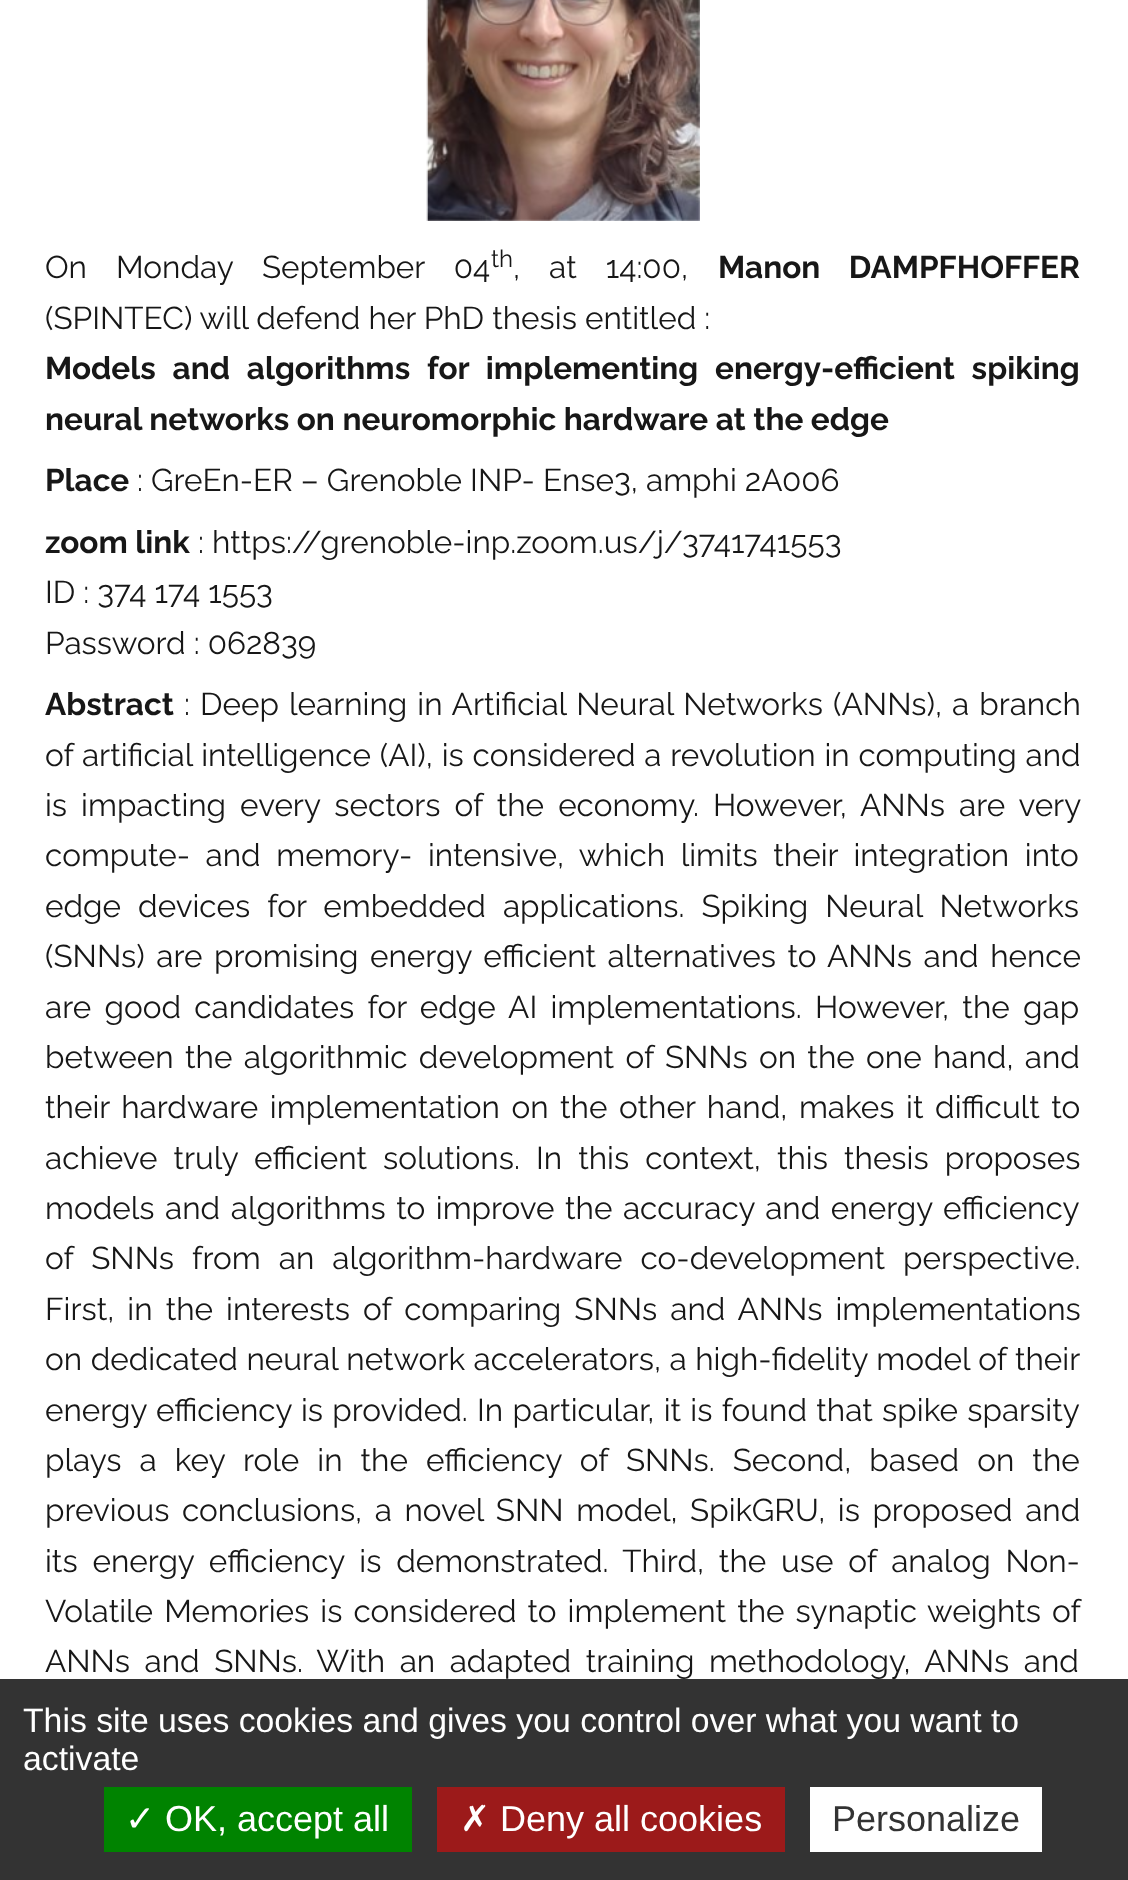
<?xml version="1.0" encoding="UTF-8"?>
<svg xmlns="http://www.w3.org/2000/svg" width="1128" height="1880">
    <rect width="100%" height="100%" fill="#FFFFFF"/>
    <image x="426" y="0" width="274" height="221" href="img_01.png"/>
    <text x="45" y="278" word-spacing="21" font-family="Raleway" font-size="31.5" fill="#171717">On Monday September 04</text>
    <text x="491" y="267" font-family="Raleway" font-size="24" fill="#171717">th</text>
    <text x="513" y="278" word-spacing="21" font-family="Raleway" font-size="31.5" fill="#171717">, at 14:00,</text>
    <text x="718" y="278" word-spacing="21" font-family="Raleway" font-size="31.5" font-weight="700" fill="#171717">Manon DAMPFHOFFER</text>
    <text x="45" y="329" font-family="Raleway" font-size="31.5" fill="#171717">(SPINTEC) will defend her PhD thesis entitled :</text>
    <text font-family="Raleway" font-size="31.5" font-weight="700" fill="#171717">
        <tspan x="45" y="379" word-spacing="9.25">Models and algorithms for implementing energy-efficient spiking</tspan>
        <tspan x="45" y="430">neural networks on neuromorphic hardware at the edge</tspan>
        <tspan x="45" y="491">Place</tspan>
    </text>
    <text x="137" y="491" font-family="Raleway" font-size="31.5" fill="#171717">: GreEn-ER – Grenoble INP- Ense3, amphi 2A006</text>
    <text x="45" y="553" font-family="Raleway" font-size="31.5" font-weight="700" fill="#171717">zoom link</text>
    <text x="198" y="553" font-family="Raleway" font-size="31.5" fill="#171717">: https://grenoble-inp.zoom.us/j/3741741553</text>
    <text font-family="Raleway" font-size="31.5" fill="#171717">
        <tspan x="45" y="603">ID : 374 174 1553</tspan>
        <tspan x="45" y="654">Password : 062839</tspan>
    </text>
    <text x="45" y="715" font-family="Raleway" font-size="31.5" font-weight="700" fill="#171717">Abstract</text>
    <text x="184" y="715" word-spacing="2" font-family="Raleway" font-size="31.5" fill="#171717">: Deep learning in Artificial Neural Networks (ANNs), a branch</text>
    <text font-family="Raleway" font-size="31.5" fill="#171717">
        <tspan x="45" y="766" word-spacing="0.75">of artificial intelligence (AI), is considered a revolution in computing and</tspan>
        <tspan x="45" y="816" word-spacing="6">is impacting every sectors of the economy. However, ANNs are very</tspan>
        <tspan x="45" y="866" word-spacing="7.5">compute- and memory- intensive, which limits their integration into</tspan>
        <tspan x="45" y="917" word-spacing="9">edge devices for embedded applications. Spiking Neural Networks</tspan>
        <tspan x="45" y="967" word-spacing="3.5">(SNNs) are promising energy efficient alternatives to ANNs and hence</tspan>
        <tspan x="45" y="1018" word-spacing="5.25">are good candidates for edge AI implementations. However, the gap</tspan>
        <tspan x="45" y="1068" word-spacing="3.25">between the algorithmic development of SNNs on the one hand, and</tspan>
        <tspan x="45" y="1118" word-spacing="3.5">their hardware implementation on the other hand, makes it difficult to</tspan>
        <tspan x="45" y="1169" word-spacing="8">achieve truly efficient solutions. In this context, this thesis proposes</tspan>
        <tspan x="45" y="1219" word-spacing="2.5">models and algorithms to improve the accuracy and energy efficiency</tspan>
        <tspan x="45" y="1269" word-spacing="10">of SNNs from an algorithm-hardware co-development perspective.</tspan>
        <tspan x="45" y="1320" word-spacing="5">First, in the interests of comparing SNNs and ANNs implementations</tspan>
        <tspan x="45" y="1370" word-spacing="0.5">on dedicated neural network accelerators, a high-fidelity model of their</tspan>
        <tspan x="45" y="1421" word-spacing="1.25">energy efficiency is provided. In particular, it is found that spike sparsity</tspan>
        <tspan x="45" y="1471" word-spacing="10">plays a key role in the efficiency of SNNs. Second, based on the</tspan>
        <tspan x="45" y="1521" word-spacing="4.5">previous conclusions, a novel SNN model, SpikGRU, is proposed and</tspan>
        <tspan x="45" y="1572" word-spacing="6.75">its energy efficiency is demonstrated. Third, the use of analog Non-</tspan>
        <tspan x="45" y="1622" word-spacing="3">Volatile Memories is considered to implement the synaptic weights of</tspan>
        <tspan x="45" y="1672" word-spacing="6.5">ANNs and SNNs. With an adapted training methodology, ANNs and</tspan>
    </text>
    <rect x="0" y="1679" width="1128" height="201" fill="#333333"/>
    <text font-family="Liberation Sans" font-size="33.75" fill="#FFFFFF">
        <tspan x="23" y="1732">This site uses cookies and gives you control over what you want to</tspan>
        <tspan x="23" y="1770">activate</tspan>
    </text>
    <rect x="104" y="1787" width="308" height="65" fill="#008300"/>
    <text x="125" y="1831" font-family="DejaVu Sans" font-size="36" fill="#FFFFFF">✓</text>
    <text x="165" y="1831" font-family="Liberation Sans" font-size="36" fill="#FFFFFF">OK, accept all</text>
    <rect x="437" y="1787" width="348" height="65" fill="#9C1A1A"/>
    <text x="460" y="1831" font-family="DejaVu Sans" font-size="36" fill="#FFFFFF">✗</text>
    <text x="500" y="1831" font-family="Liberation Sans" font-size="36" fill="#FFFFFF">Deny all cookies</text>
    <rect x="810" y="1787" width="232" height="65" fill="#FFFFFF"/>
    <text x="832" y="1831" font-family="Liberation Sans" font-size="36" fill="#333333">Personalize</text>
</svg>
